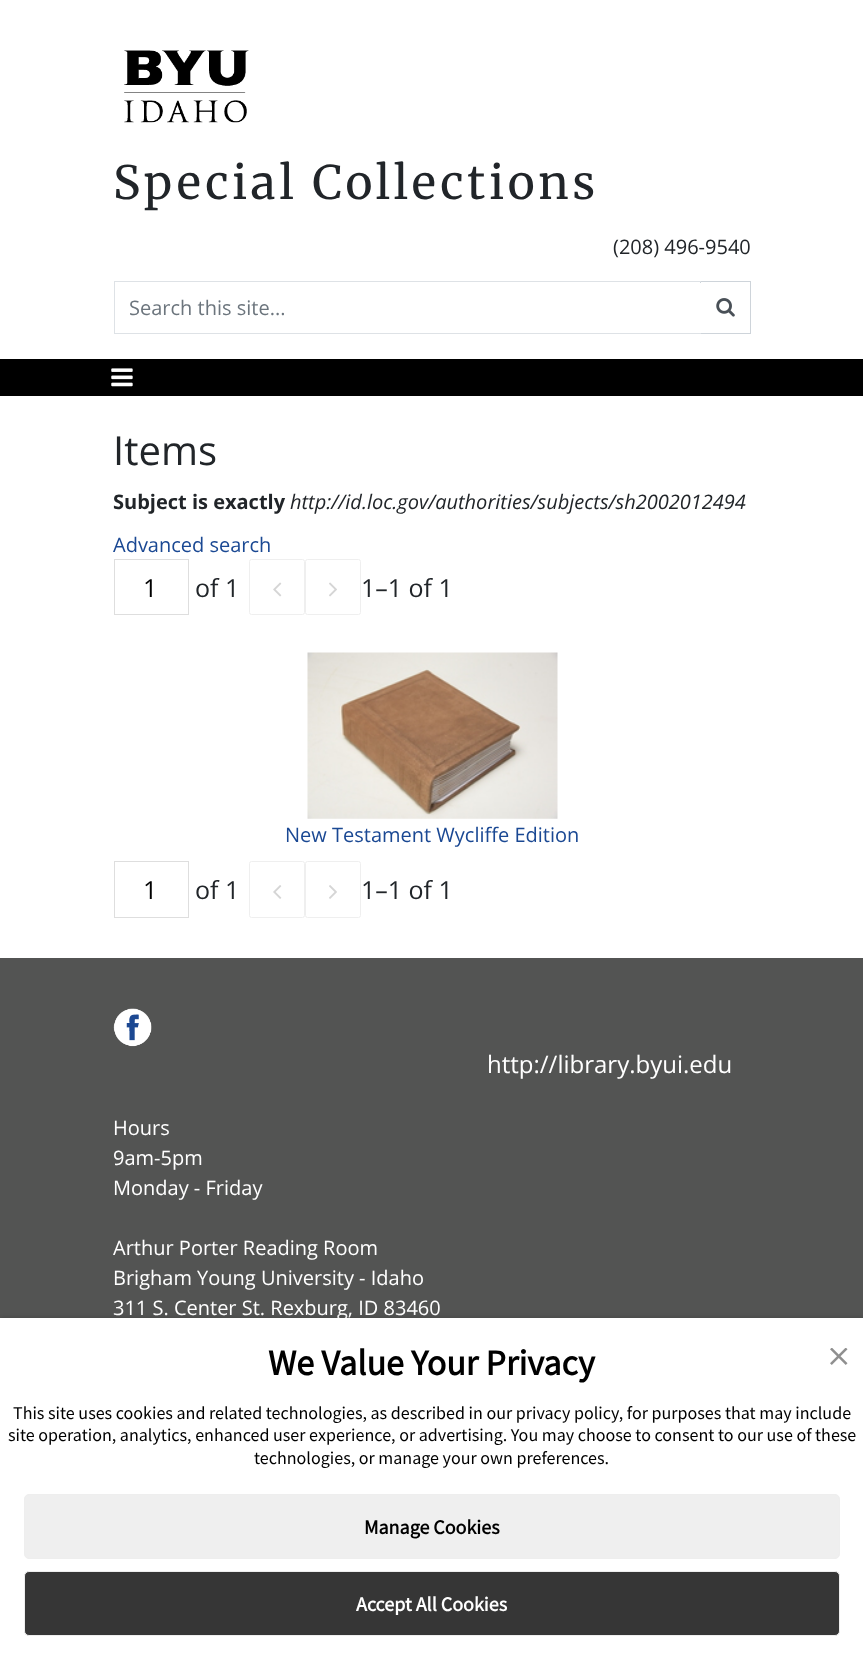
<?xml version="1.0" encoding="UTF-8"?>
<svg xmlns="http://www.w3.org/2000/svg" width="863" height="1661">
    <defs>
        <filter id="blur1" x="-50%" y="-200%" width="200%" height="500%"><feGaussianBlur stdDeviation="2.5"/></filter>
    </defs>
    <rect width="100%" height="100%" fill="#FFFFFF"/>
    <image x="124" y="50" width="125" height="73" href="img_01.png"/>
    <text x="113" y="199" font-family="Merriweather" font-size="46" letter-spacing="3.75" fill="#212529">Special Collections</text>
    <text x="613" y="254" font-family="Open Sans" font-size="20" fill="#212529">(208) 496-9540</text>
    <rect x="700.5" y="281.5" width="50" height="52" fill="none" stroke="#CED4DA"/>
    <rect x="700" y="283" width="1" height="50" fill="#FFFFFF"/>
    <rect x="114" y="281" width="587" height="1" fill="#DEE2E6"/>
    <rect x="114" y="333" width="587" height="1" fill="#DEE2E6"/>
    <rect x="114" y="281" width="1" height="53" fill="#DEE2E6"/>
    <text x="129" y="315" font-family="Open Sans" font-size="20" fill="#6C757D">Search this site...</text>
    <image x="716" y="298" width="19" height="19" href="img_02.png"/>
    <rect x="0" y="359" width="863" height="37" fill="#000000"/>
    <image x="111" y="368" width="22" height="19" href="img_03.png"/>
    <text x="113" y="465" font-family="Open Sans" font-size="40" fill="#212529">Items</text>
    <text x="113" y="509" font-family="Open Sans" font-size="20" font-weight="700" fill="#212529">Subject is exactly</text>
    <text x="290" y="509" font-family="Open Sans" font-size="20" font-style="italic" fill="#212529">http://id.loc.gov/authorities/subjects/sh2002012494</text>
    <text x="113" y="552" font-family="Open Sans" font-size="20" fill="#1A4893">Advanced search</text>
    <rect x="114.5" y="559.5" width="74" height="55" fill="none" stroke="#DEDEDE"/>
    <text x="143" y="597" font-family="Open Sans" font-size="25" fill="#000000">1</text>
    <text x="195" y="597" font-family="Open Sans" font-size="25" fill="#212529">of 1</text>
    <rect x="249.5" y="559.5" width="55" height="55" rx="2" fill="none" stroke="#EFEFEF"/>
    <image x="273" y="582" width="9" height="15" href="img_04.png"/>
    <rect x="305.5" y="559.5" width="55" height="55" rx="2" fill="none" stroke="#EFEFEF"/>
    <image x="329" y="582" width="8" height="15" href="img_05.png"/>
    <text x="361" y="597" font-family="Open Sans" font-size="25" fill="#212529">1–1 of 1</text>
    <image x="307" y="652" width="251" height="167" href="img_06.png"/>
    <text x="285" y="842" font-family="Open Sans" font-size="20" fill="#1A4893">New Testament Wycliffe Edition</text>
    <rect x="114.5" y="861.5" width="74" height="56" fill="none" stroke="#DEDEDE"/>
    <text x="143" y="899" font-family="Open Sans" font-size="25" fill="#000000">1</text>
    <text x="195" y="899" font-family="Open Sans" font-size="25" fill="#212529">of 1</text>
    <rect x="249.5" y="861.5" width="55" height="56" rx="2" fill="none" stroke="#EFEFEF"/>
    <image x="273" y="885" width="9" height="14" href="img_07.png"/>
    <rect x="305.5" y="861.5" width="55" height="56" rx="2" fill="none" stroke="#EFEFEF"/>
    <image x="329" y="885" width="8" height="14" href="img_08.png"/>
    <text x="361" y="899" font-family="Open Sans" font-size="25" fill="#212529">1–1 of 1</text>
    <rect x="0" y="958" width="863" height="360" fill="#535453"/>
    <image x="113" y="1008" width="39" height="39" href="img_09.png"/>
    <text x="487" y="1073" font-family="Open Sans" font-size="24" fill="#FFFFFF">http://library.byui.edu</text>
    <text font-family="Open Sans" font-size="20" fill="#FFFFFF">
        <tspan x="113" y="1135">Hours</tspan>
        <tspan x="113" y="1165">9am-5pm</tspan>
        <tspan x="113" y="1195">Monday - Friday</tspan>
    </text>
    <text font-family="Open Sans" font-size="20" fill="#FFFFFF">
        <tspan x="113" y="1255">Arthur Porter Reading Room</tspan>
        <tspan x="113" y="1285">Brigham Young University - Idaho</tspan>
        <tspan x="113" y="1315">311 S. Center St. Rexburg, ID 83460</tspan>
    </text>
    <rect x="0" y="1318" width="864" height="343" fill="#000000" fill-opacity="0.2" filter="url(#blur1)"/>
    <rect x="0" y="1318" width="863" height="343" fill="#FFFFFF"/>
    <image x="830" y="1348" width="18" height="17" href="img_10.png"/>
    <text x="268" y="1375" font-family="Source Sans Pro" font-size="36" font-weight="700" fill="#000000">We Value Your Privacy</text>
    <text x="13" y="1419" font-family="Source Sans Pro" font-size="18" fill="#000000">This site uses cookies and related technologies, as described in our privacy policy, for purposes that may include</text>
    <text x="8" y="1441" font-family="Source Sans Pro" font-size="18" fill="#000000">site operation, analytics, enhanced user experience, or advertising. You may choose to consent to our use of these</text>
    <text x="254" y="1464" font-family="Source Sans Pro" font-size="18" fill="#000000">technologies, or manage your own preferences.</text>
    <rect x="24.5" y="1494.5" width="815" height="64" rx="4.5" fill="#EFEFEF" stroke="#EEEEEE"/>
    <text x="364" y="1534" font-family="Source Sans Pro" font-size="20" font-weight="700" fill="#000000">Manage Cookies</text>
    <rect x="24.5" y="1571.5" width="815" height="64" rx="4.5" fill="#363636" stroke="#EEEEEE"/>
    <text x="356" y="1611" font-family="Source Sans Pro" font-size="20" font-weight="700" fill="#FFFFFF">Accept All Cookies</text>
</svg>
